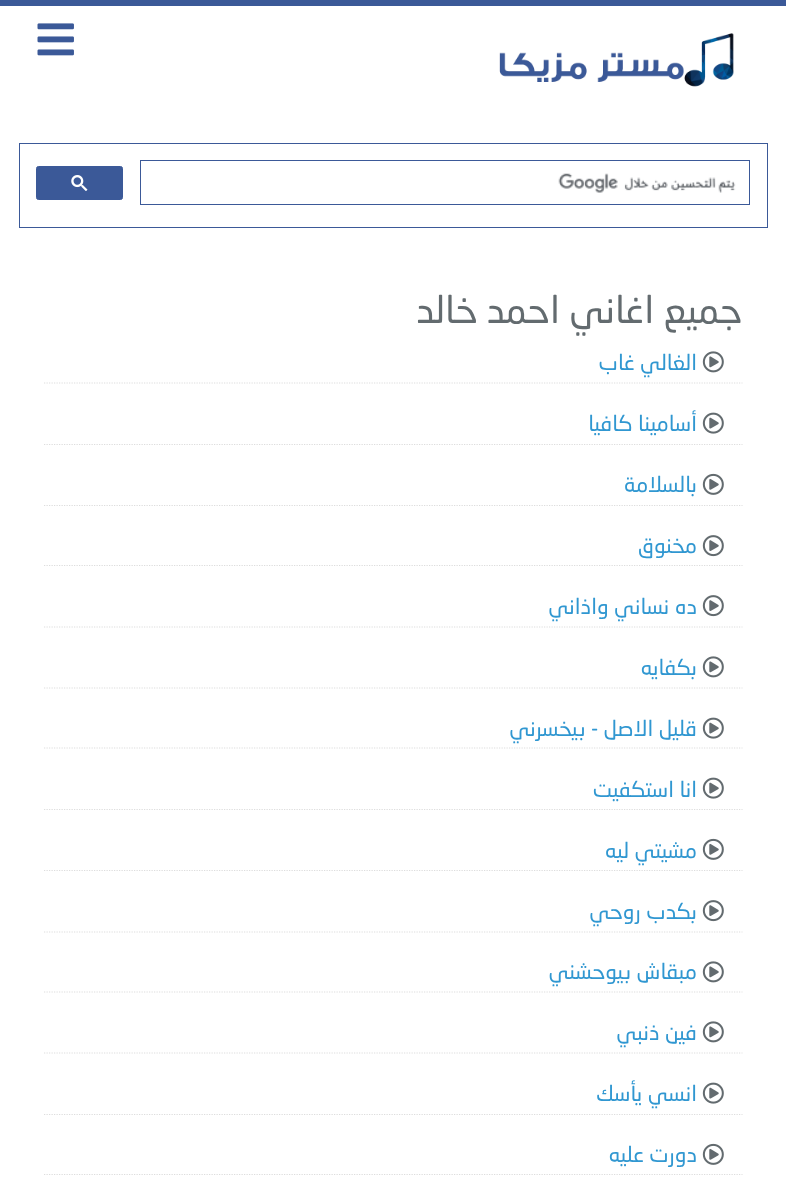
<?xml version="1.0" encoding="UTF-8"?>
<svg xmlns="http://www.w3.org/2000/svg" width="786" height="1202">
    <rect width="100%" height="100%" fill="#FFFFFF"/>
    <rect x="0" y="0" width="786" height="6" fill="#3B5998"/>
    <image x="499" y="33" width="235" height="54" href="img_01.png"/>
    <image x="37" y="23" width="37" height="33" href="img_02.png"/>
    <rect x="19.5" y="143.5" width="748" height="84" fill="none" stroke="#3B5998"/>
    <rect x="140.5" y="160.5" width="609" height="44" fill="none" stroke="#3B5998"/>
    <image x="558" y="173" width="178" height="20" href="img_03.png"/>
    <rect x="36.5" y="166.5" width="86" height="33" rx="2" fill="#3B5998" stroke="#3B5998"/>
    <image x="71" y="175" width="17" height="16" href="img_04.png"/>
    <text x="742" y="323" font-family="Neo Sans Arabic" font-size="37.5" direction="rtl" fill="#636B6F">جميع اغاني احمد خالد</text>
    <path d="M 44 383 H 742.5" fill="none" stroke="#DDDDDD" stroke-width="1.2" stroke-dasharray="1.25 1.25"/>
    <image x="702" y="351" width="22" height="22" href="img_05.png"/>
    <text x="697" y="370" font-family="Neo Sans Arabic" font-size="21.75" direction="rtl" fill="#3097D1">الغالي غاب</text>
    <path d="M 44 444.5 H 742.5" fill="none" stroke="#DDDDDD" stroke-width="1.2" stroke-dasharray="1.25 1.25"/>
    <image x="702" y="412" width="22" height="22" href="img_06.png"/>
    <text x="697" y="431" font-family="Neo Sans Arabic" font-size="21.75" direction="rtl" fill="#3097D1">أسامينا كافيا</text>
    <path d="M 44 505.5 H 742.5" fill="none" stroke="#DDDDDD" stroke-width="1.2" stroke-dasharray="1.25 1.25"/>
    <image x="702" y="473" width="22" height="22" href="img_07.png"/>
    <text x="697" y="492" font-family="Neo Sans Arabic" font-size="21.75" direction="rtl" fill="#3097D1">بالسلامة</text>
    <path d="M 44 565.5 H 742.5" fill="none" stroke="#DDDDDD" stroke-width="1.2" stroke-dasharray="1.25 1.25"/>
    <image x="702" y="535" width="22" height="22" href="img_08.png"/>
    <text x="697" y="553" font-family="Neo Sans Arabic" font-size="21.75" direction="rtl" fill="#3097D1">مخنوق</text>
    <path d="M 44 627 H 742.5" fill="none" stroke="#DDDDDD" stroke-width="1.2" stroke-dasharray="1.25 1.25"/>
    <image x="702" y="595" width="22" height="22" href="img_08.png"/>
    <text x="697" y="614" font-family="Neo Sans Arabic" font-size="21.75" direction="rtl" fill="#3097D1">ده نساني واذاني</text>
    <path d="M 44 688 H 742.5" fill="none" stroke="#DDDDDD" stroke-width="1.2" stroke-dasharray="1.25 1.25"/>
    <image x="702" y="656" width="22" height="22" href="img_05.png"/>
    <text x="697" y="675" font-family="Neo Sans Arabic" font-size="21.75" direction="rtl" fill="#3097D1">بكفايه</text>
    <path d="M 44 748 H 742.5" fill="none" stroke="#DDDDDD" stroke-width="1.2" stroke-dasharray="1.25 1.25"/>
    <image x="702" y="717" width="22" height="22" href="img_06.png"/>
    <text x="697" y="736" font-family="Neo Sans Arabic" font-size="21.75" direction="rtl" fill="#3097D1">قليل الاصل - بيخسرني</text>
    <path d="M 44 809.5 H 742.5" fill="none" stroke="#DDDDDD" stroke-width="1.2" stroke-dasharray="1.25 1.25"/>
    <image x="702" y="777" width="22" height="22" href="img_06.png"/>
    <text x="697" y="797" font-family="Neo Sans Arabic" font-size="21.75" direction="rtl" fill="#3097D1">انا استكفيت</text>
    <path d="M 44 870.5 H 742.5" fill="none" stroke="#DDDDDD" stroke-width="1.2" stroke-dasharray="1.25 1.25"/>
    <image x="702" y="838" width="22" height="22" href="img_07.png"/>
    <text x="697" y="858" font-family="Neo Sans Arabic" font-size="21.75" direction="rtl" fill="#3097D1">مشيتي ليه</text>
    <path d="M 44 932 H 742.5" fill="none" stroke="#DDDDDD" stroke-width="1.2" stroke-dasharray="1.25 1.25"/>
    <image x="702" y="900" width="22" height="22" href="img_08.png"/>
    <text x="697" y="919" font-family="Neo Sans Arabic" font-size="21.75" direction="rtl" fill="#3097D1">بكدب روحي</text>
    <path d="M 44 992 H 742.5" fill="none" stroke="#DDDDDD" stroke-width="1.2" stroke-dasharray="1.25 1.25"/>
    <image x="702" y="961" width="22" height="22" href="img_05.png"/>
    <text x="697" y="979" font-family="Neo Sans Arabic" font-size="21.75" direction="rtl" fill="#3097D1">مبقاش بيوحشني</text>
    <path d="M 44 1053 H 742.5" fill="none" stroke="#DDDDDD" stroke-width="1.2" stroke-dasharray="1.25 1.25"/>
    <image x="702" y="1021" width="22" height="22" href="img_05.png"/>
    <text x="697" y="1040" font-family="Neo Sans Arabic" font-size="21.75" direction="rtl" fill="#3097D1">فين ذنبي</text>
    <path d="M 44 1114.5 H 742.5" fill="none" stroke="#DDDDDD" stroke-width="1.2" stroke-dasharray="1.25 1.25"/>
    <image x="702" y="1082" width="22" height="22" href="img_06.png"/>
    <text x="697" y="1101" font-family="Neo Sans Arabic" font-size="21.75" direction="rtl" fill="#3097D1">انسي يأسك</text>
    <path d="M 44 1174.5 H 742.5" fill="none" stroke="#DDDDDD" stroke-width="1.2" stroke-dasharray="1.25 1.25"/>
    <image x="702" y="1143" width="22" height="22" href="img_07.png"/>
    <text x="697" y="1162" font-family="Neo Sans Arabic" font-size="21.75" direction="rtl" fill="#3097D1">دورت عليه</text>
</svg>
